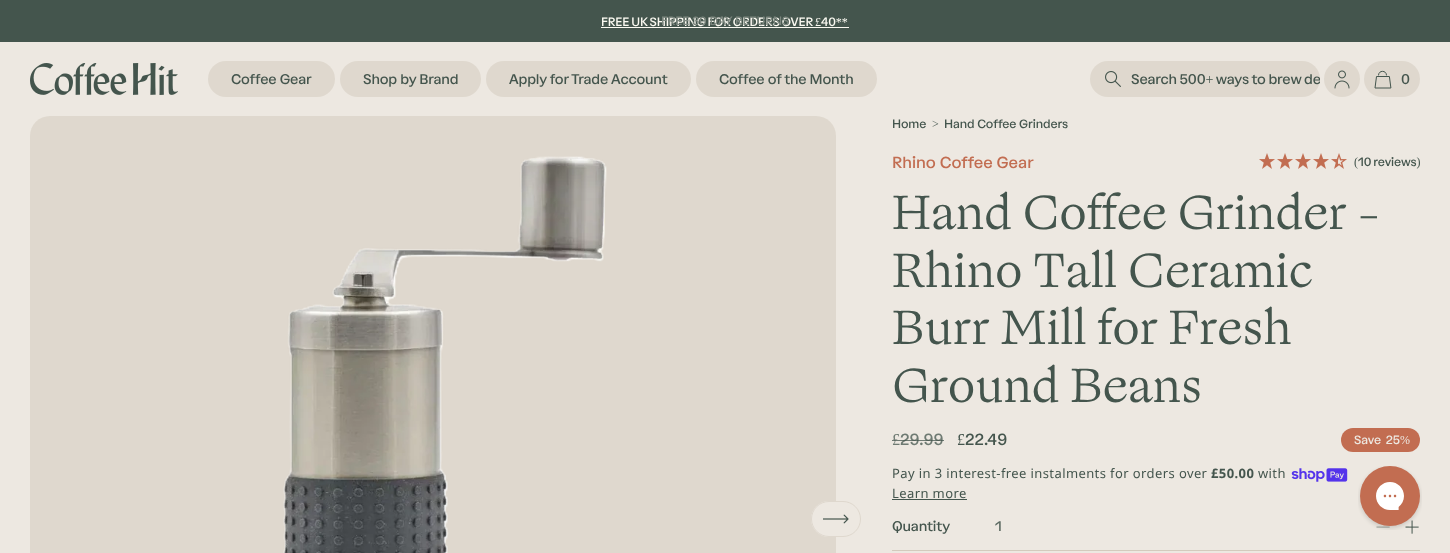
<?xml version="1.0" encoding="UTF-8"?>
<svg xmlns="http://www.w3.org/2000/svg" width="1450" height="553">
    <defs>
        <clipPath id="clip1"><rect x="1131" y="61" width="189" height="36"/></clipPath>
    </defs>
    <rect width="100%" height="100%" fill="#EDE8E1"/>
    <rect x="0" y="0" width="1450" height="42" fill="#44554D"/>
    <text x="601" y="26" word-spacing="-0.75" font-family="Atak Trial" font-size="12" font-weight="500" letter-spacing="-0.1" fill="#FBFAF2">FREE UK SHIPPING FOR ORDERS OVER £40**</text>
    <text x="661" y="25" font-family="Atak Trial" font-size="12" font-weight="500" letter-spacing="-0.1" fill="#7C877F">FREE 30 DAY RETURNS</text>
    <rect x="601" y="27" width="248" height="1" fill="#FBFAF2"/>
    <image x="30" y="63" width="148" height="32" href="img_01.png"/>
    <rect x="208" y="61" width="127" height="36" rx="18" fill="#DFD8CE"/>
    <text x="231" y="84" font-family="Atak Trial" font-size="14" font-weight="500" letter-spacing="-0.15" fill="#44554D">Coffee Gear</text>
    <rect x="340" y="61" width="141" height="36" rx="18" fill="#DFD8CE"/>
    <text x="363" y="84" font-family="Atak Trial" font-size="14" font-weight="500" letter-spacing="-0.15" fill="#44554D">Shop by Brand</text>
    <rect x="486" y="61" width="205" height="36" rx="18" fill="#DFD8CE"/>
    <text x="509" y="84" font-family="Atak Trial" font-size="14" font-weight="500" letter-spacing="-0.15" fill="#44554D">Apply for Trade Account</text>
    <rect x="696" y="61" width="181" height="36" rx="18" fill="#DFD8CE"/>
    <text x="719" y="84" font-family="Atak Trial" font-size="14" font-weight="500" letter-spacing="-0.15" fill="#44554D">Coffee of the Month</text>
    <rect x="1090" y="61" width="230" height="36" rx="18" fill="#DFD8CE"/>
    <image x="1105" y="71" width="16" height="16" href="img_02.png"/>
    <g clip-path="url(#clip1)">
        <text x="1131" y="84" word-spacing="-0.5" font-family="Atak Trial" font-size="14" font-weight="500" letter-spacing="-0.15" fill="#44554D">Search 500+ ways to brew de</text>
    </g>
    <circle cx="1342" cy="79" r="18" fill="#DFD8CE"/>
    <image x="1334" y="70" width="16" height="19" href="img_03.png"/>
    <rect x="1364" y="61" width="56" height="36" rx="18" fill="#DFD8CE"/>
    <path d="M 1378.5 75 C 1378.5 70 1386.5 70 1386.5 75 M 1390.5 88 H 1375 L 1376.5 76.5 H 1389 Z" fill="none" stroke="#44554D" stroke-linecap="round" stroke-linejoin="round"/>
    <text x="1401" y="84" font-family="Atak Trial" font-size="14" font-weight="500" letter-spacing="-0.15" fill="#44554D">0</text>
    <rect x="30" y="116" width="806" height="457" rx="20" fill="#DFD8CE"/>
    <image x="283" y="156" width="324" height="397" href="img_04.png"/>
    <rect x="811" y="501" width="50" height="36" rx="18" fill="#EDE8E1"/>
    <image x="823" y="514" width="26" height="10" href="img_05.png"/>
    <rect x="811.5" y="501.5" width="49" height="35" rx="17.5" fill="none" stroke="#DFD8CE"/>
    <text x="892" y="128" font-family="Atak Trial" font-size="12" font-weight="500" letter-spacing="-0.1" fill="#44554D">Home</text>
    <text x="932" y="128" font-family="Atak Trial" font-size="12" font-weight="500" letter-spacing="-0.1" fill="#44554D">&gt;</text>
    <text x="944" y="128" font-family="Atak Trial" font-size="12" font-weight="500" letter-spacing="-0.1" fill="#44554D">Hand Coffee Grinders</text>
    <text x="892" y="168" font-family="Atak Trial" font-size="16" font-weight="500" fill="#C26D51">Rhino Coffee Gear</text>
    <image x="1259" y="153" width="16" height="16" href="img_06.png"/>
    <image x="1277" y="153" width="16" height="16" href="img_06.png"/>
    <image x="1295" y="153" width="16" height="16" href="img_06.png"/>
    <image x="1313" y="153" width="16" height="16" href="img_06.png"/>
    <image x="1331" y="153" width="16" height="16" href="img_07.png"/>
    <text x="1354" y="166" word-spacing="-0.75" font-family="Atak Trial" font-size="12" font-weight="500" letter-spacing="-0.1" fill="#44554D">(10 reviews)</text>
    <text font-family="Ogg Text" font-size="48" font-weight="300" fill="#44554D">
        <tspan x="892" y="229">Hand Coffee Grinder -</tspan>
        <tspan x="892" y="287">Rhino Tall Ceramic</tspan>
        <tspan x="892" y="344">Burr Mill for Fresh</tspan>
        <tspan x="892" y="402">Ground Beans</tspan>
    </text>
    <text x="892" y="445" font-family="Atak Trial" font-size="16" font-weight="500" fill="#6E7A72">£29.99</text>
    <rect x="892" y="440" width="52" height="1" fill="#44554D" fill-opacity="0.75"/>
    <text x="957" y="445" font-family="Atak Trial" font-size="16" font-weight="500" fill="#44554D">£22.49</text>
    <rect x="1341" y="428" width="79" height="24" rx="12" fill="#C26D51"/>
    <text x="1354" y="444" word-spacing="2" font-family="Atak Trial" font-size="12" font-weight="500" letter-spacing="-0.1" fill="#EDE8E1">Save 25%</text>
    <text x="892" y="478" font-family="Noto Sans" font-size="13" letter-spacing="0.4" fill="#44554D">Pay in 3 interest-free instalments for orders over</text>
    <text x="1211" y="478" font-family="Noto Sans" font-size="13" font-weight="700" letter-spacing="0.4" fill="#44554D">£50.00</text>
    <text x="1258" y="478" font-family="Noto Sans" font-size="13" letter-spacing="0.4" fill="#44554D">with</text>
    <image x="1291" y="468" width="57" height="14" href="img_08.png"/>
    <text x="892" y="498" font-family="Noto Sans" font-size="13" letter-spacing="0.4" fill="#44554D">Learn more</text>
    <rect x="892" y="499" width="75" height="1" fill="#44554D"/>
    <rect x="892" y="550" width="528" height="1" fill="#D4CABD"/>
    <text x="892" y="531" font-family="Atak Trial" font-size="14" font-weight="500" letter-spacing="-0.15" fill="#44554D">Quantity</text>
    <text x="995" y="531" font-family="Atak Trial" font-size="14" font-weight="500" letter-spacing="-0.15" fill="#5D6B63">1</text>
    <image x="1376" y="526" width="14" height="2" href="img_09.png"/>
    <image x="1405" y="520" width="14" height="14" href="img_10.png"/>
    <image x="1358" y="466" width="64" height="64" href="img_11.png"/>
</svg>
